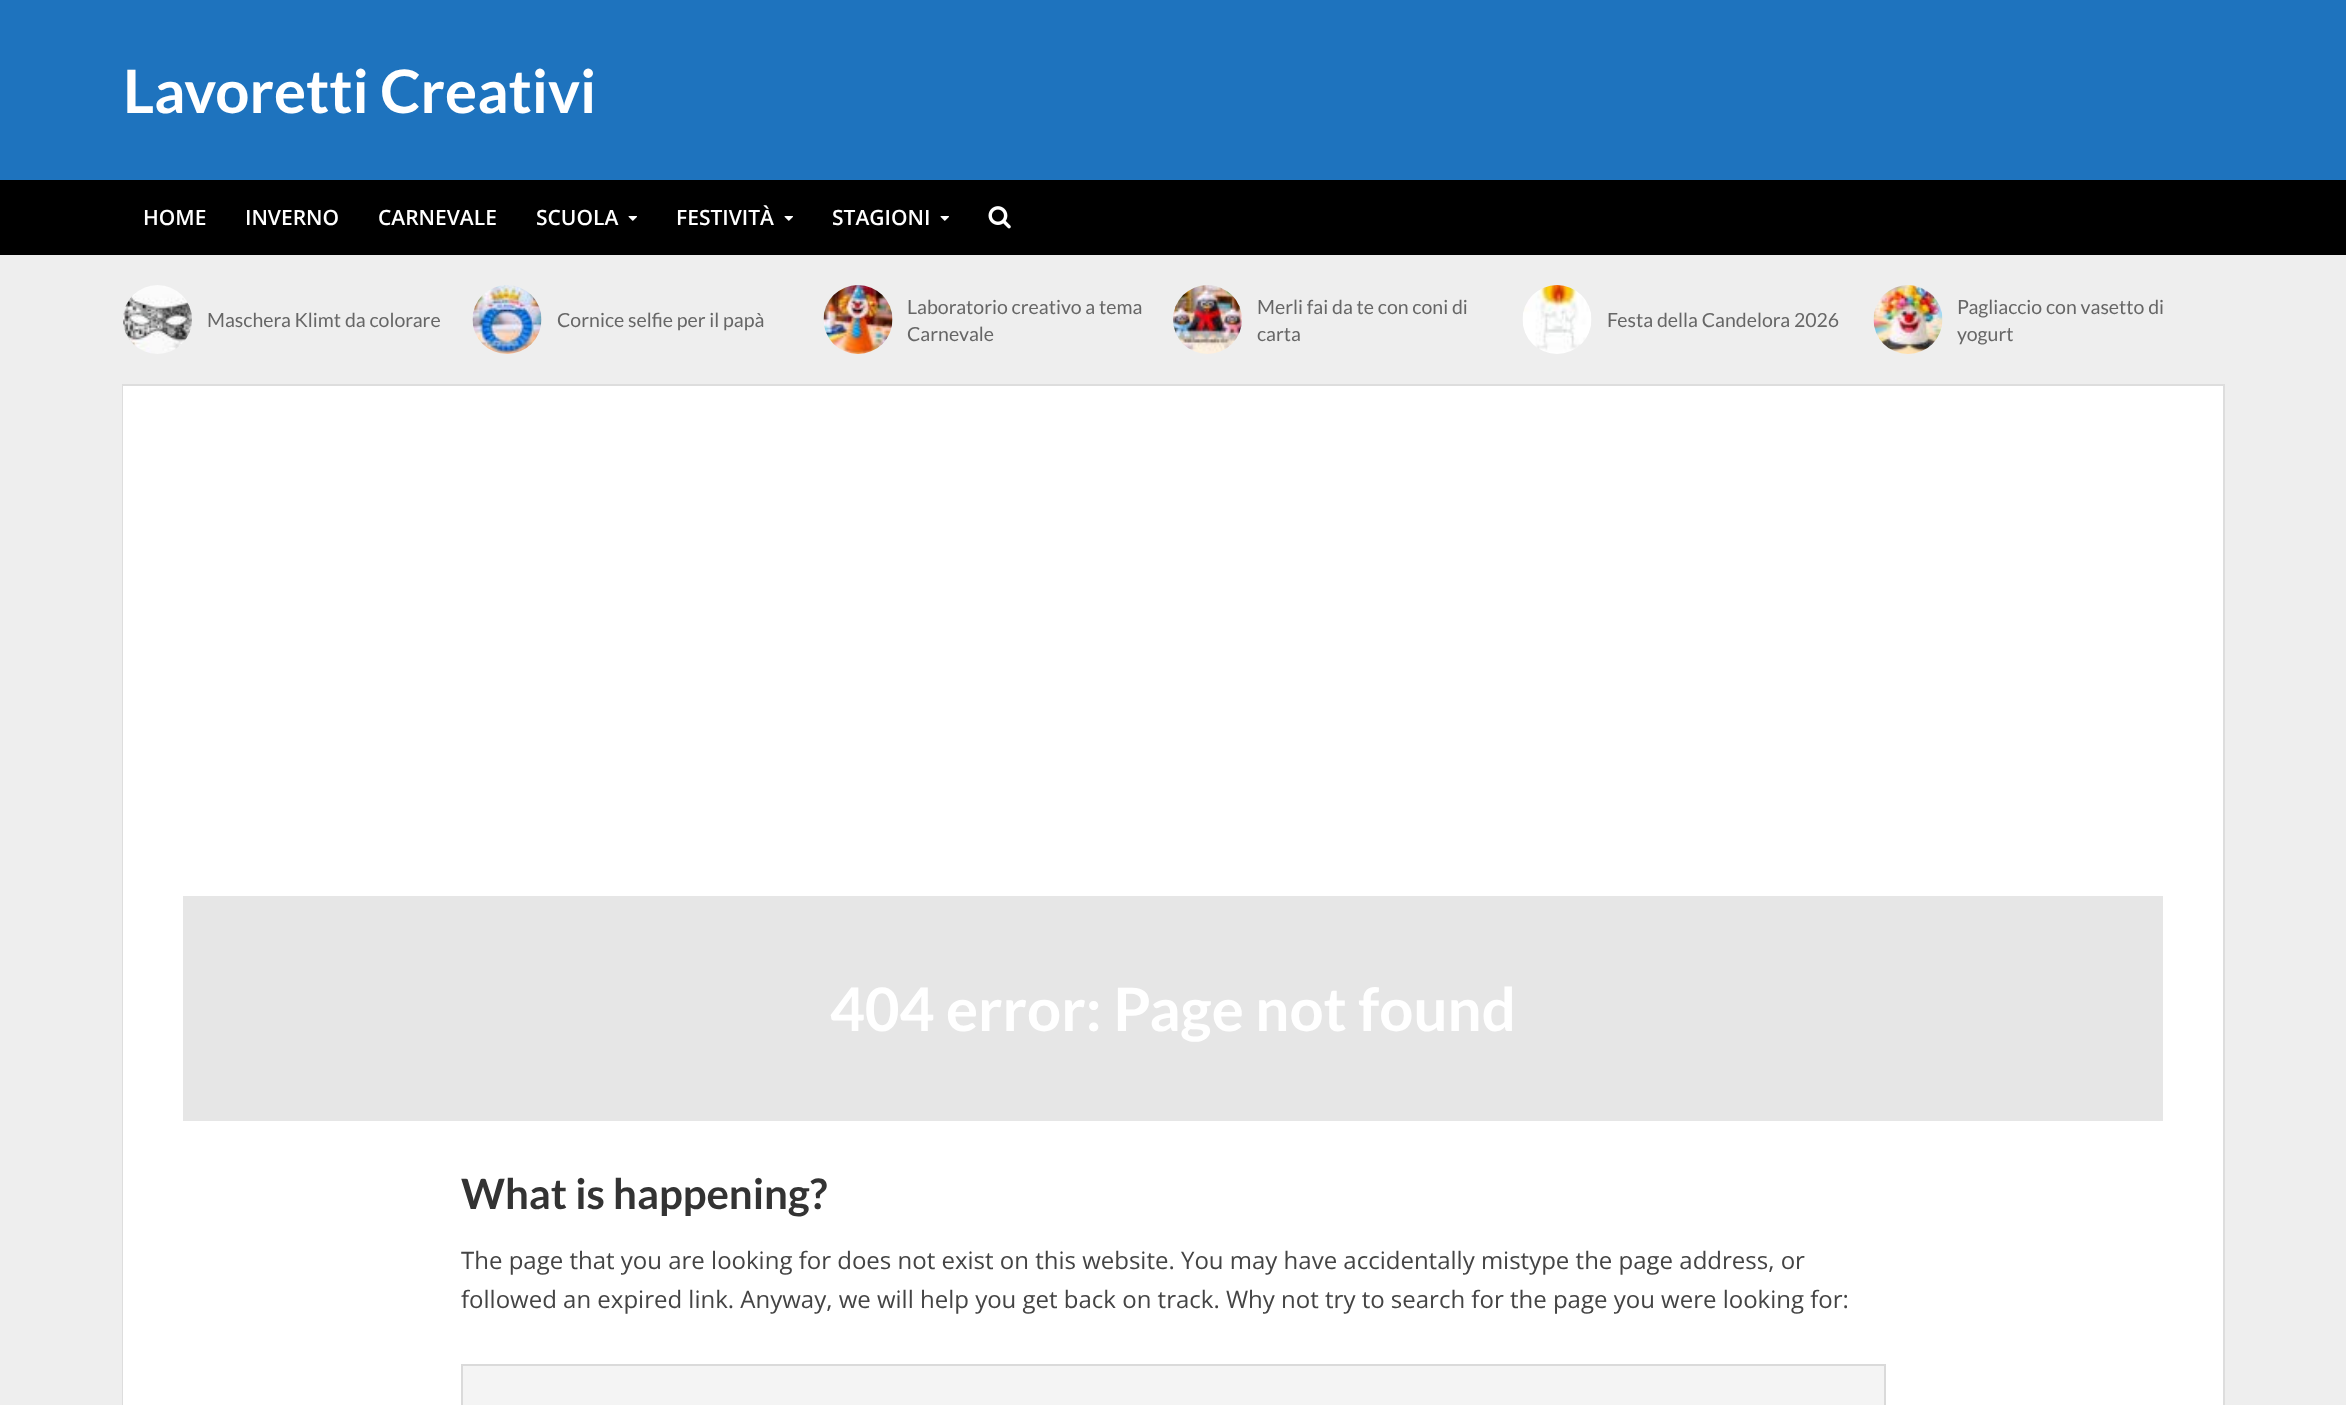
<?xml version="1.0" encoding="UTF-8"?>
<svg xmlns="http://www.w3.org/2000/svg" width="2346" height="1405">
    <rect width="100%" height="100%" fill="#EEEEEE"/>
    <rect x="0" y="0" width="2346" height="180" fill="#1E73BE"/>
    <text x="123" y="113" font-family="Lato" font-size="60" font-weight="700" fill="#FFFFFF">Lavoretti Creativi</text>
    <rect x="0" y="180" width="2346" height="75" fill="#000000"/>
    <text x="143" y="225" font-family="Open Sans" font-size="21" font-weight="600" fill="#FFFFFF">HOME</text>
    <text x="245" y="225" font-family="Open Sans" font-size="21" font-weight="600" fill="#FFFFFF">INVERNO</text>
    <text x="378" y="225" font-family="Open Sans" font-size="21" font-weight="600" fill="#FFFFFF">CARNEVALE</text>
    <text x="536" y="225" font-family="Open Sans" font-size="21" font-weight="600" fill="#FFFFFF">SCUOLA</text>
    <image x="628" y="216" width="9" height="5" href="img_01.png"/>
    <text x="676" y="225" font-family="Open Sans" font-size="21" font-weight="600" fill="#FFFFFF">FESTIVITÀ</text>
    <image x="784" y="216" width="9" height="5" href="img_01.png"/>
    <text x="832" y="225" font-family="Open Sans" font-size="21" font-weight="600" fill="#FFFFFF">STAGIONI</text>
    <image x="940" y="216" width="9" height="5" href="img_01.png"/>
    <image x="988" y="206" width="23" height="23" href="img_02.png"/>
    <image x="123" y="285" width="69" height="69" href="img_03.png"/>
    <text x="207" y="327" font-family="Lato" font-size="19.5" fill="#666666">Maschera Klimt da colorare</text>
    <image x="472" y="285" width="70" height="69" href="img_04.png"/>
    <text x="557" y="327" font-family="Lato" font-size="19.5" fill="#666666">Cornice selfie per il papà</text>
    <image x="823" y="285" width="70" height="69" href="img_05.png"/>
    <text font-family="Lato" font-size="19.5" fill="#666666">
        <tspan x="907" y="314">Laboratorio creativo a tema</tspan>
        <tspan x="907" y="341">Carnevale</tspan>
    </text>
    <image x="1173" y="285" width="69" height="69" href="img_06.png"/>
    <text font-family="Lato" font-size="19.5" fill="#666666">
        <tspan x="1257" y="314">Merli fai da te con coni di</tspan>
        <tspan x="1257" y="341">carta</tspan>
    </text>
    <image x="1522" y="285" width="70" height="69" href="img_07.png"/>
    <text x="1607" y="327" font-family="Lato" font-size="19.5" fill="#666666">Festa della Candelora 2026</text>
    <image x="1873" y="285" width="70" height="69" href="img_08.png"/>
    <text font-family="Lato" font-size="19.5" fill="#666666">
        <tspan x="1957" y="314">Pagliaccio con vasetto di</tspan>
        <tspan x="1957" y="341">yogurt</tspan>
    </text>
    <rect x="123" y="385" width="2101" height="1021" fill="none" stroke="#DDDDDD" stroke-width="2"/>
    <rect x="123" y="386" width="2100" height="1019" fill="#FFFFFF"/>
    <rect x="183" y="896" width="1980" height="225" fill="#E6E6E6"/>
    <text x="830" y="1031" font-family="Lato" font-size="60" font-weight="700" fill="#FFFFFF">404 error: Page not found</text>
    <text x="461" y="1209" font-family="Lato" font-size="42" font-weight="700" fill="#333333">What is happening?</text>
    <text font-family="Open Sans" font-size="24" fill="#444444">
        <tspan x="461" y="1269">The page that you are looking for does not exist on this website. You may have accidentally mistype the page address, or</tspan>
        <tspan x="461" y="1308">followed an expired link. Anyway, we will help you get back on track. Why not try to search for the page you were looking for:</tspan>
    </text>
    <rect x="462" y="1365" width="1423" height="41" fill="#F4F4F4" stroke="#DADADA" stroke-width="2"/>
</svg>
